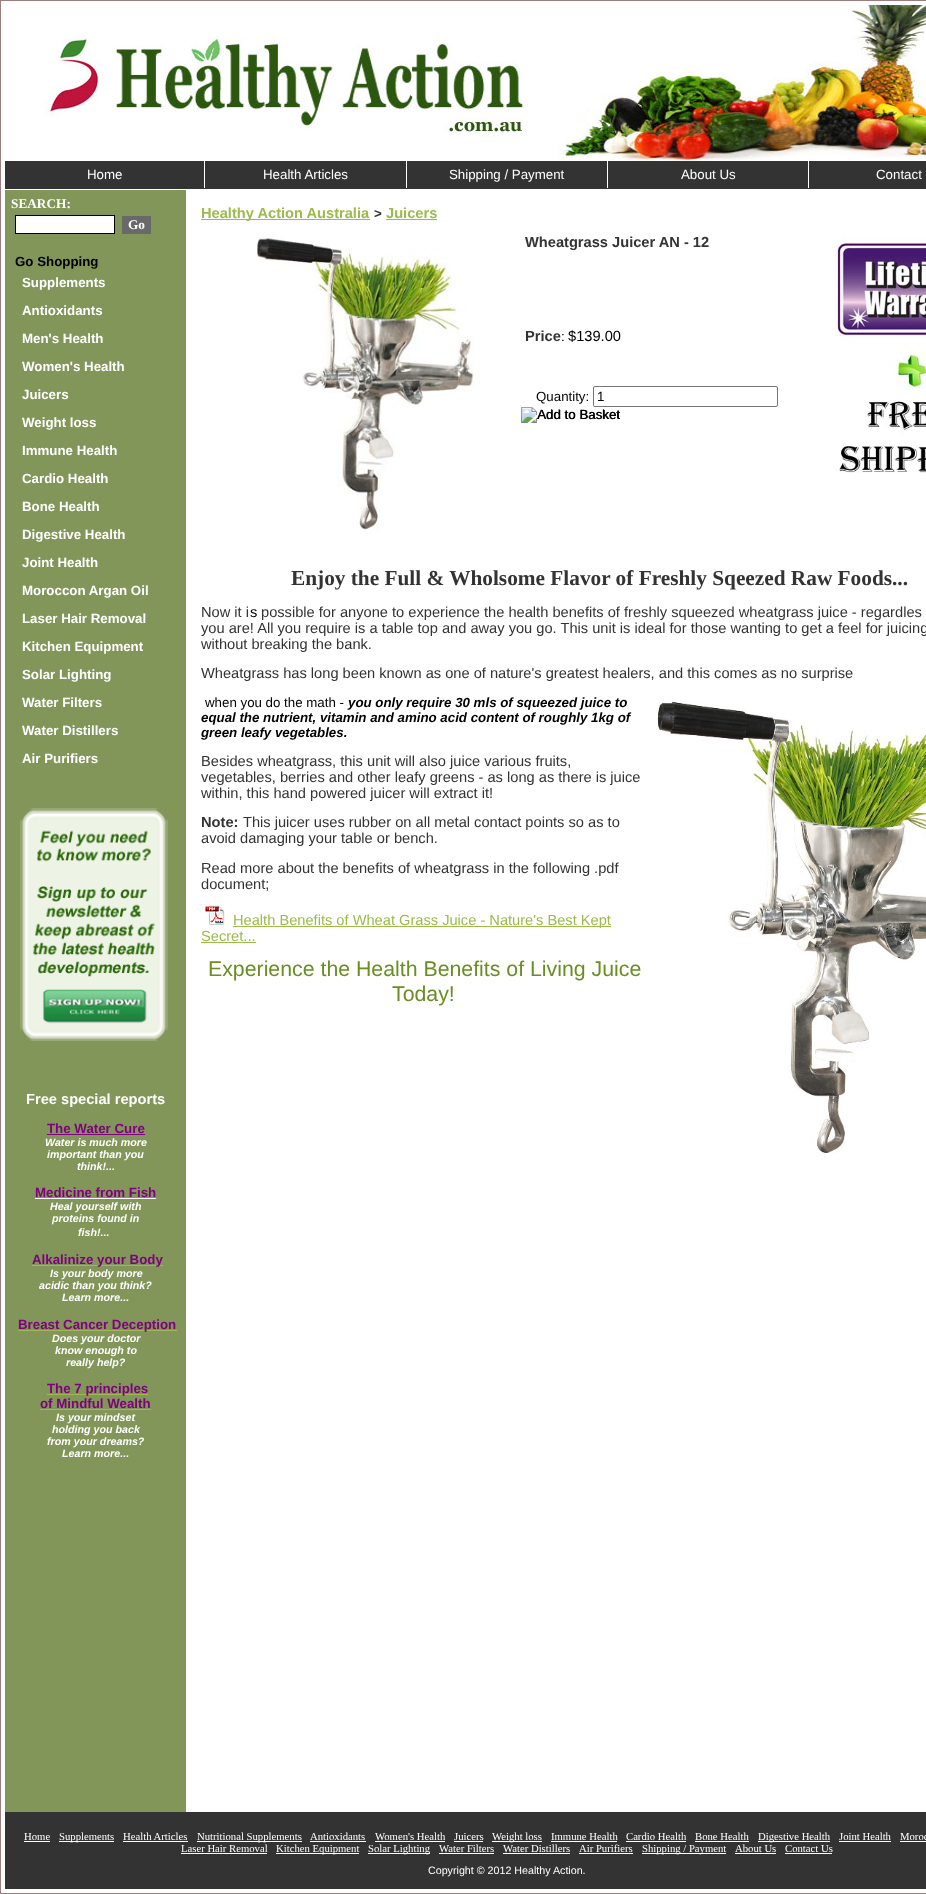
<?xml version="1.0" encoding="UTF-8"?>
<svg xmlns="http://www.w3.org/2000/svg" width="926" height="1894">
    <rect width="100%" height="100%" fill="#FFFFFF"/>
    <rect x="0.5" y="0.5" width="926" height="1893" fill="none" stroke="#9B7D80"/>
    <image x="5" y="5" width="921" height="155" href="img_01.png"/>
    <rect x="5" y="161" width="921" height="28" fill="#333333"/>
    <text x="87" y="179" font-family="Liberation Sans" font-size="13.3" fill="#FFFFFF">Home</text>
    <rect x="204" y="161" width="1" height="27" fill="#FFFFFF"/>
    <text x="263" y="179" font-family="Liberation Sans" font-size="13.3" fill="#FFFFFF">Health Articles</text>
    <rect x="406" y="161" width="1" height="27" fill="#FFFFFF"/>
    <text x="449" y="179" font-family="Liberation Sans" font-size="13.3" fill="#FFFFFF">Shipping / Payment</text>
    <rect x="607" y="161" width="1" height="27" fill="#FFFFFF"/>
    <text x="681" y="179" font-family="Liberation Sans" font-size="13.3" fill="#FFFFFF">About Us</text>
    <rect x="808" y="161" width="1" height="27" fill="#FFFFFF"/>
    <text x="876" y="179" font-family="Liberation Sans" font-size="13.3" fill="#FFFFFF">Contact</text>
    <rect x="5" y="190" width="181" height="1621" fill="#829659"/>
    <text x="11" y="208" font-family="Liberation Serif" font-size="13.3" font-weight="700" fill="#FFFFFF">SEARCH:</text>
    <rect x="15.5" y="215.5" width="99" height="18" fill="#FFFFFF" stroke="#000000"/>
    <rect x="122" y="216" width="29" height="18" fill="#696969"/>
    <text x="128" y="229" font-family="Liberation Serif" font-size="13.3" font-weight="700" fill="#FFFFFF">Go</text>
    <text x="15" y="266" font-family="Liberation Sans" font-size="13.3" font-weight="700" fill="#000000">Go Shopping</text>
    <text x="22" y="287" font-family="Liberation Sans" font-size="13.3" font-weight="700" fill="#FFFFFF">Supplements</text>
    <text x="22" y="315" font-family="Liberation Sans" font-size="13.3" font-weight="700" fill="#FFFFFF">Antioxidants</text>
    <text x="22" y="343" font-family="Liberation Sans" font-size="13.3" font-weight="700" fill="#FFFFFF">Men's Health</text>
    <text x="22" y="371" font-family="Liberation Sans" font-size="13.3" font-weight="700" fill="#FFFFFF">Women's Health</text>
    <text x="22" y="399" font-family="Liberation Sans" font-size="13.3" font-weight="700" fill="#FFFFFF">Juicers</text>
    <text x="22" y="427" font-family="Liberation Sans" font-size="13.3" font-weight="700" fill="#FFFFFF">Weight loss</text>
    <text x="22" y="455" font-family="Liberation Sans" font-size="13.3" font-weight="700" fill="#FFFFFF">Immune Health</text>
    <text x="22" y="483" font-family="Liberation Sans" font-size="13.3" font-weight="700" fill="#FFFFFF">Cardio Health</text>
    <text x="22" y="511" font-family="Liberation Sans" font-size="13.3" font-weight="700" fill="#FFFFFF">Bone Health</text>
    <text x="22" y="539" font-family="Liberation Sans" font-size="13.3" font-weight="700" fill="#FFFFFF">Digestive Health</text>
    <text x="22" y="567" font-family="Liberation Sans" font-size="13.3" font-weight="700" fill="#FFFFFF">Joint Health</text>
    <text x="22" y="595" font-family="Liberation Sans" font-size="13.3" font-weight="700" fill="#FFFFFF">Moroccon Argan Oil</text>
    <text x="22" y="623" font-family="Liberation Sans" font-size="13.3" font-weight="700" fill="#FFFFFF">Laser Hair Removal</text>
    <text x="22" y="651" font-family="Liberation Sans" font-size="13.3" font-weight="700" fill="#FFFFFF">Kitchen Equipment</text>
    <text x="22" y="679" font-family="Liberation Sans" font-size="13.3" font-weight="700" fill="#FFFFFF">Solar Lighting</text>
    <text x="22" y="707" font-family="Liberation Sans" font-size="13.3" font-weight="700" fill="#FFFFFF">Water Filters</text>
    <text x="22" y="735" font-family="Liberation Sans" font-size="13.3" font-weight="700" fill="#FFFFFF">Water Distillers</text>
    <text x="22" y="763" font-family="Liberation Sans" font-size="13.3" font-weight="700" fill="#FFFFFF">Air Purifiers</text>
    <image x="20" y="808" width="148" height="233" href="img_02.png"/>
    <text x="26" y="1104" font-family="Liberation Sans" font-size="14.65" font-weight="700" fill="#FFFFFF">Free special reports</text>
    <text x="47" y="1133" font-family="Liberation Sans" font-size="13.3" font-weight="700" fill="#800080">The Water Cure</text>
    <rect x="47" y="1134" width="98" height="1" fill="#800080"/>
    <text x="45" y="1146" font-family="Liberation Sans" font-size="10.7" font-weight="700" font-style="italic" fill="#FFFFFF">Water is much more</text>
    <text x="47" y="1158" font-family="Liberation Sans" font-size="10.7" font-weight="700" font-style="italic" fill="#FFFFFF">important than you</text>
    <text x="77" y="1170" font-family="Liberation Sans" font-size="10.7" font-weight="700" font-style="italic" fill="#FFFFFF">think!...</text>
    <text x="35" y="1197" font-family="Liberation Sans" font-size="13.3" font-weight="700" fill="#800080">Medicine from Fish</text>
    <rect x="35" y="1198" width="121" height="1" fill="#FFFFFF"/>
    <text x="50" y="1210" font-family="Liberation Sans" font-size="10.7" font-weight="700" font-style="italic" fill="#FFFFFF">Heal yourself with</text>
    <text x="52" y="1222" font-family="Liberation Sans" font-size="10.7" font-weight="700" font-style="italic" fill="#FFFFFF">proteins found in</text>
    <text x="78" y="1236" font-family="Liberation Sans" font-size="10.7" font-weight="700" font-style="italic" fill="#FFFFFF">fish!...</text>
    <rect x="32" y="1265" width="131" height="1" fill="#9DBB4B"/>
    <text x="32" y="1264" font-family="Liberation Sans" font-size="13.3" font-weight="700" fill="#800080">Alkalinize your Body</text>
    <text x="50" y="1277" font-family="Liberation Sans" font-size="10.7" font-weight="700" font-style="italic" fill="#FFFFFF">Is your body more</text>
    <text x="39" y="1289" font-family="Liberation Sans" font-size="10.7" font-weight="700" font-style="italic" fill="#FFFFFF">acidic than you think?</text>
    <text x="62" y="1301" font-family="Liberation Sans" font-size="10.7" font-weight="700" font-style="italic" fill="#FFFFFF">Learn more...</text>
    <rect x="18" y="1330" width="159" height="1" fill="#9DBB4B"/>
    <text x="18" y="1329" font-family="Liberation Sans" font-size="13.3" font-weight="700" fill="#800080">Breast Cancer Deception</text>
    <text x="52" y="1342" font-family="Liberation Sans" font-size="10.7" font-weight="700" font-style="italic" fill="#FFFFFF">Does your doctor</text>
    <text x="55" y="1354" font-family="Liberation Sans" font-size="10.7" font-weight="700" font-style="italic" fill="#FFFFFF">know enough to</text>
    <text x="66" y="1366" font-family="Liberation Sans" font-size="10.7" font-weight="700" font-style="italic" fill="#FFFFFF">really help?</text>
    <rect x="47" y="1394" width="101" height="1" fill="#9DBB4B"/>
    <text x="47" y="1393" font-family="Liberation Sans" font-size="13.3" font-weight="700" fill="#800080">The 7 principles</text>
    <text x="40" y="1408" font-family="Liberation Sans" font-size="13.3" font-weight="700" fill="#800080">of Mindful Wealth</text>
    <rect x="40" y="1409" width="111" height="1" fill="#9DBB4B"/>
    <text x="56" y="1421" font-family="Liberation Sans" font-size="10.7" font-weight="700" font-style="italic" fill="#FFFFFF">Is your mindset</text>
    <text x="52" y="1433" font-family="Liberation Sans" font-size="10.7" font-weight="700" font-style="italic" fill="#FFFFFF">holding you back</text>
    <text x="47" y="1445" font-family="Liberation Sans" font-size="10.7" font-weight="700" font-style="italic" fill="#FFFFFF">from your dreams?</text>
    <text x="62" y="1457" font-family="Liberation Sans" font-size="10.7" font-weight="700" font-style="italic" fill="#FFFFFF">Learn more...</text>
    <rect x="201" y="219" width="169" height="1" fill="#9DBB4B"/>
    <text x="201" y="218" font-family="Liberation Sans" font-size="14.65" font-weight="700" fill="#9DBB4B">Healthy Action Australia</text>
    <text x="374" y="218" font-family="Liberation Sans" font-size="13.3" font-weight="700" fill="#333333">&gt;</text>
    <text x="386" y="218" font-family="Liberation Sans" font-size="14.65" font-weight="700" fill="#9DBB4B">Juicers</text>
    <rect x="386" y="219" width="51" height="1" fill="#9DBB4B"/>
    <image x="257" y="234" width="219" height="300" href="img_03.png"/>
    <text x="525" y="247" font-family="Liberation Sans" font-size="14.65" font-weight="700" fill="#333333">Wheatgrass Juicer AN - 12</text>
    <image x="835" y="236" width="91" height="237" href="img_04.png"/>
    <text x="525" y="341" font-family="Liberation Sans" font-size="14.65" font-weight="700" fill="#333333">Price</text>
    <text x="561" y="341" font-family="Liberation Sans" font-size="13.3" fill="#000000">:</text>
    <text x="568" y="341" font-family="Liberation Sans" font-size="14.65" fill="#000000">$139.00</text>
    <text x="536" y="401" font-family="Liberation Sans" font-size="13.3" fill="#000000">Quantity:</text>
    <rect x="593.5" y="386.5" width="184" height="20" rx="1.5" fill="none" stroke="#767676"/>
    <text x="597" y="401" font-family="Liberation Sans" font-size="13.3" fill="#000000">1</text>
    <image x="521" y="407" width="99" height="16" href="img_05.png"/>
    <text x="537" y="419" font-family="Liberation Sans" font-size="13.3" fill="#000000">Add to Basket</text>
    <text x="291" y="585" font-family="Liberation Serif" font-size="21.3" font-weight="700" fill="#333333">Enjoy the Full &amp; Wholsome Flavor of Freshly Sqeezed Raw Foods...</text>
    <text x="201" y="617" font-family="Liberation Sans" font-size="14.65" fill="#333333">Now it i</text>
    <text x="250" y="617" font-family="Liberation Sans" font-size="14.65" fill="#000000">s</text>
    <text x="261" y="617" font-family="Liberation Sans" font-size="14.65" fill="#333333">possible for anyone to experience the health benefits of freshly squeezed wheatgrass juice - regardles</text>
    <text font-family="Liberation Sans" font-size="14.65" fill="#333333">
        <tspan x="201" y="633">you are! All you require is a table top and away you go. This unit is ideal for those wanting to get a feel for juicing</tspan>
        <tspan x="201" y="649">without breaking the bank.</tspan>
        <tspan x="201" y="678">Wheatgrass has long been known as one of nature's greatest healers, and this comes as no surprise</tspan>
    </text>
    <text x="205" y="707" font-family="Liberation Sans" font-size="13.3" fill="#000000">when you do the math -</text>
    <text x="348" y="707" font-family="Liberation Sans" font-size="13.3" font-weight="700" font-style="italic" fill="#000000">you only require 30 mls of squeezed juice to</text>
    <text font-family="Liberation Sans" font-size="13.3" font-weight="700" font-style="italic" fill="#000000">
        <tspan x="201" y="722">equal the nutrient, vitamin and amino acid content of roughly 1kg of</tspan>
        <tspan x="201" y="737">green leafy vegetables.</tspan>
    </text>
    <image x="656" y="701" width="270" height="453" href="img_06.png"/>
    <text font-family="Liberation Sans" font-size="14.65" fill="#333333">
        <tspan x="201" y="766">Besides wheatgrass, this unit will also juice various fruits,</tspan>
        <tspan x="201" y="782">vegetables, berries and other leafy greens - as long as there is juice</tspan>
        <tspan x="201" y="798">within, this hand powered juicer will extract it!</tspan>
    </text>
    <text x="201" y="827" font-family="Liberation Sans" font-size="14.65" font-weight="700" fill="#333333">Note:</text>
    <text x="243" y="827" font-family="Liberation Sans" font-size="14.65" fill="#333333">This juicer uses rubber on all metal contact points so as to</text>
    <text x="201" y="843" font-family="Liberation Sans" font-size="14.65" fill="#333333">avoid damaging your table or bench.</text>
    <text font-family="Liberation Sans" font-size="14.65" fill="#333333">
        <tspan x="201" y="873">Read more about the benefits of wheatgrass in the following .pdf</tspan>
        <tspan x="201" y="889">document;</tspan>
    </text>
    <image x="205" y="905" width="20" height="20" href="img_07.png"/>
    <rect x="233" y="926" width="378" height="1" fill="#9DBB4B"/>
    <text x="233" y="925" font-family="Liberation Sans" font-size="14.65" fill="#9DBB4B">Health Benefits of Wheat Grass Juice - Nature's Best Kept</text>
    <text x="201" y="941" font-family="Liberation Sans" font-size="14.65" fill="#9DBB4B">Secret...</text>
    <rect x="201" y="942" width="55" height="1" fill="#9DBB4B"/>
    <text x="208" y="976" font-family="Liberation Sans" font-size="21.3" fill="#6B8E23">Experience the Health Benefits of Living Juice</text>
    <text x="392" y="1001" font-family="Liberation Sans" font-size="21.3" fill="#6B8E23">Today!</text>
    <rect x="1" y="1811" width="185" height="1" fill="#829659"/>
    <rect x="1" y="1811" width="4" height="1" fill="#FFFFFF"/>
    <rect x="5" y="1812" width="921" height="77" fill="#333333"/>
    <text x="24" y="1840" font-family="Liberation Serif" font-size="10.7" fill="#FFFFFF">Home</text>
    <rect x="24" y="1841" width="26" height="1" fill="#FFFFFF"/>
    <rect x="59" y="1841" width="55" height="1" fill="#FFFFFF"/>
    <text x="59" y="1840" font-family="Liberation Serif" font-size="10.7" fill="#FFFFFF">Supplements</text>
    <text x="123" y="1840" font-family="Liberation Serif" font-size="10.7" fill="#FFFFFF">Health Articles</text>
    <rect x="123" y="1841" width="65" height="1" fill="#FFFFFF"/>
    <rect x="197" y="1841" width="105" height="1" fill="#FFFFFF"/>
    <text x="197" y="1840" font-family="Liberation Serif" font-size="10.7" fill="#FFFFFF">Nutritional Supplements</text>
    <text x="310" y="1840" font-family="Liberation Serif" font-size="10.7" fill="#FFFFFF">Antioxidants</text>
    <rect x="310" y="1841" width="56" height="1" fill="#FFFFFF"/>
    <text x="375" y="1840" font-family="Liberation Serif" font-size="10.7" fill="#FFFFFF">Women's Health</text>
    <rect x="375" y="1841" width="70" height="1" fill="#FFFFFF"/>
    <text x="454" y="1840" font-family="Liberation Serif" font-size="10.7" fill="#FFFFFF">Juicers</text>
    <rect x="454" y="1841" width="29" height="1" fill="#FFFFFF"/>
    <rect x="492" y="1841" width="50" height="1" fill="#FFFFFF"/>
    <text x="492" y="1840" font-family="Liberation Serif" font-size="10.7" fill="#FFFFFF">Weight loss</text>
    <text x="551" y="1840" font-family="Liberation Serif" font-size="10.7" fill="#FFFFFF">Immune Health</text>
    <rect x="551" y="1841" width="66" height="1" fill="#FFFFFF"/>
    <text x="626" y="1840" font-family="Liberation Serif" font-size="10.7" fill="#FFFFFF">Cardio Health</text>
    <rect x="626" y="1841" width="60" height="1" fill="#FFFFFF"/>
    <text x="695" y="1840" font-family="Liberation Serif" font-size="10.7" fill="#FFFFFF">Bone Health</text>
    <rect x="695" y="1841" width="54" height="1" fill="#FFFFFF"/>
    <rect x="758" y="1841" width="72" height="1" fill="#FFFFFF"/>
    <text x="758" y="1840" font-family="Liberation Serif" font-size="10.7" fill="#FFFFFF">Digestive Health</text>
    <text x="839" y="1840" font-family="Liberation Serif" font-size="10.7" fill="#FFFFFF">Joint Health</text>
    <rect x="839" y="1841" width="52" height="1" fill="#FFFFFF"/>
    <text x="900" y="1840" font-family="Liberation Serif" font-size="10.7" fill="#FFFFFF">Moroc</text>
    <rect x="900" y="1841" width="26" height="1" fill="#FFFFFF"/>
    <text x="181" y="1852" font-family="Liberation Serif" font-size="10.7" fill="#FFFFFF">Laser Hair Removal</text>
    <rect x="181" y="1853" width="86" height="1" fill="#FFFFFF"/>
    <rect x="276" y="1853" width="83" height="1" fill="#FFFFFF"/>
    <text x="276" y="1852" font-family="Liberation Serif" font-size="10.7" fill="#FFFFFF">Kitchen Equipment</text>
    <rect x="368" y="1853" width="62" height="1" fill="#FFFFFF"/>
    <text x="368" y="1852" font-family="Liberation Serif" font-size="10.7" fill="#FFFFFF">Solar Lighting</text>
    <text x="439" y="1852" font-family="Liberation Serif" font-size="10.7" fill="#FFFFFF">Water Filters</text>
    <rect x="439" y="1853" width="55" height="1" fill="#FFFFFF"/>
    <text x="503" y="1852" font-family="Liberation Serif" font-size="10.7" fill="#FFFFFF">Water Distillers</text>
    <rect x="503" y="1853" width="67" height="1" fill="#FFFFFF"/>
    <text x="579" y="1852" font-family="Liberation Serif" font-size="10.7" fill="#FFFFFF">Air Purifiers</text>
    <rect x="579" y="1853" width="54" height="1" fill="#FFFFFF"/>
    <rect x="642" y="1853" width="84" height="1" fill="#FFFFFF"/>
    <text x="642" y="1852" font-family="Liberation Serif" font-size="10.7" fill="#FFFFFF">Shipping / Payment</text>
    <text x="735" y="1852" font-family="Liberation Serif" font-size="10.7" fill="#FFFFFF">About Us</text>
    <rect x="735" y="1853" width="41" height="1" fill="#FFFFFF"/>
    <text x="785" y="1852" font-family="Liberation Serif" font-size="10.7" fill="#FFFFFF">Contact Us</text>
    <rect x="785" y="1853" width="47" height="1" fill="#FFFFFF"/>
    <text x="428" y="1874" font-family="Liberation Sans" font-size="10.7" fill="#FFFFFF">Copyright © 2012 Healthy Action.</text>
</svg>
